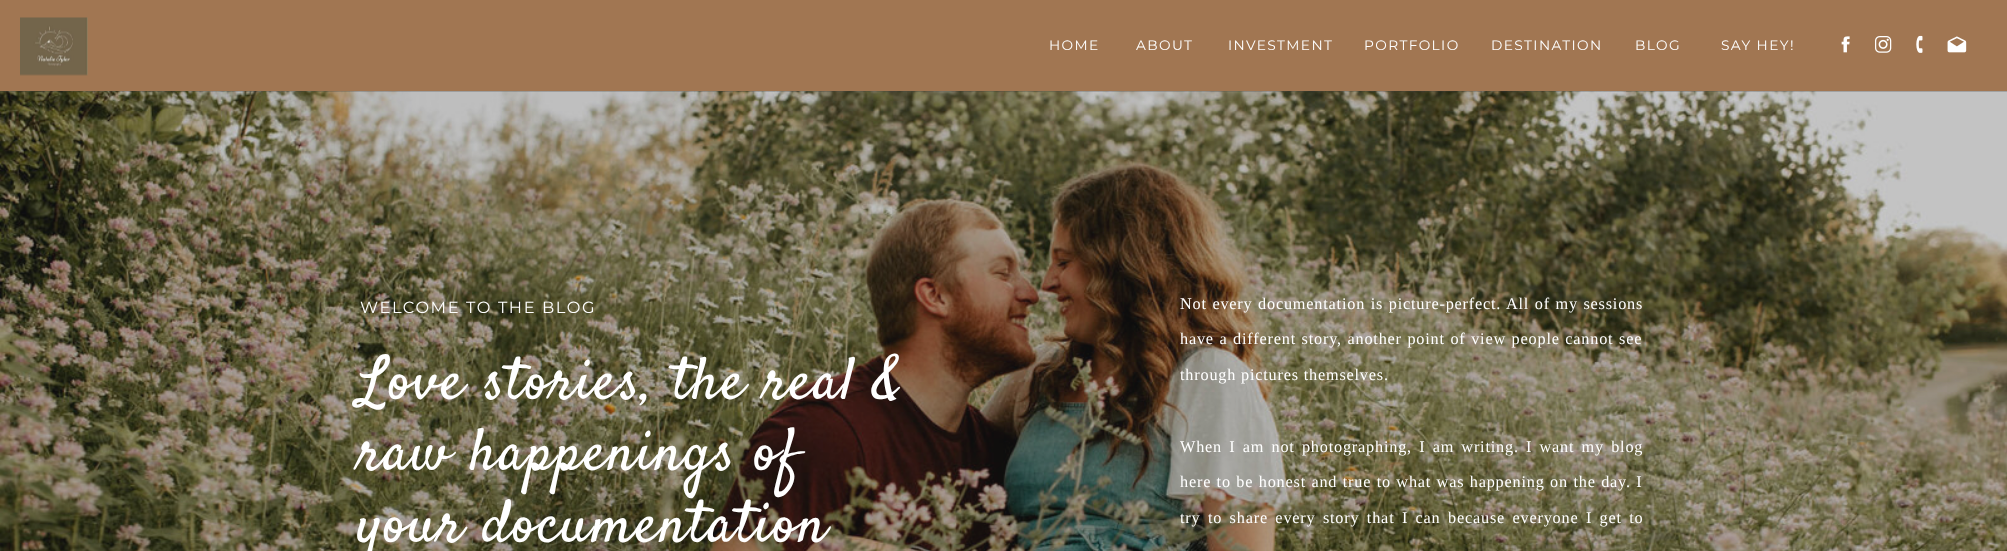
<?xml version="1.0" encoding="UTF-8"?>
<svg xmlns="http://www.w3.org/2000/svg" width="2007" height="551">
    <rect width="100%" height="100%" fill="#414141"/>
    <rect x="0" y="0" width="2007" height="91" fill="#A17652"/>
    <image x="20" y="17" width="68" height="59" href="img_01.png"/>
    <text x="1049" y="50" font-family="Montserrat" font-size="13.75" letter-spacing="1.4" fill="#FFFFFF">HOME</text>
    <text x="1136" y="50" font-family="Montserrat" font-size="13.75" letter-spacing="1.4" fill="#FFFFFF">ABOUT</text>
    <text x="1228" y="50" font-family="Montserrat" font-size="13.75" letter-spacing="1.4" fill="#FFFFFF">INVESTMENT</text>
    <text x="1364" y="50" font-family="Montserrat" font-size="13.75" letter-spacing="1.4" fill="#FFFFFF">PORTFOLIO</text>
    <text x="1491" y="50" font-family="Montserrat" font-size="13.75" letter-spacing="1.4" fill="#FFFFFF">DESTINATION</text>
    <text x="1635" y="50" font-family="Montserrat" font-size="13.75" letter-spacing="1.4" fill="#FFFFFF">BLOG</text>
    <text x="1721" y="50" font-family="Montserrat" font-size="13.75" letter-spacing="1.4" fill="#FFFFFF">SAY HEY!</text>
    <image x="1841" y="36" width="9" height="17" href="img_02.png"/>
    <image x="1875" y="36" width="17" height="17" href="img_03.png"/>
    <image x="1916" y="35" width="7" height="18" href="img_04.png"/>
    <image x="1947" y="36" width="20" height="17" href="img_05.png"/>
    <image x="0" y="91" width="2007" height="460" href="img_06.png"/>
    <text x="360" y="313" font-family="Montserrat" font-size="16.25" letter-spacing="1.6" fill="#FFFFFF">WELCOME TO THE BLOG</text>
    <text x="1180" y="309" word-spacing="0.75" font-family="Liberation Serif" font-size="16.25" letter-spacing="0.8" fill="#FFFFFF">Not every documentation is picture-perfect. All of my sessions</text>
    <text x="1180" y="344" word-spacing="0.75" font-family="Liberation Serif" font-size="16.25" letter-spacing="0.8" fill="#FFFFFF">have a different story, another point of view people cannot see</text>
    <text x="1180" y="380" font-family="Liberation Serif" font-size="16.25" letter-spacing="0.8" fill="#FFFFFF">through pictures themselves.</text>
    <text x="1180" y="452" word-spacing="2.4" font-family="Liberation Serif" font-size="16.25" letter-spacing="0.8" fill="#FFFFFF">When I am not photographing, I am writing. I want my blog</text>
    <text x="1180" y="487" word-spacing="0.6" font-family="Liberation Serif" font-size="16.25" letter-spacing="0.8" fill="#FFFFFF">here to be honest and true to what was happening on the day. I</text>
    <text x="1180" y="523" word-spacing="2.6" font-family="Liberation Serif" font-size="16.25" letter-spacing="0.8" fill="#FFFFFF">try to share every story that I can because everyone I get to</text>
    <text font-family="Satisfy" font-size="60" letter-spacing="1.5" fill="#FFFFFF">
        <tspan x="358" y="398">Love stories, the real &amp;</tspan>
        <tspan x="358" y="469">raw happenings of</tspan>
        <tspan x="358" y="541">your documentation</tspan>
    </text>
</svg>
